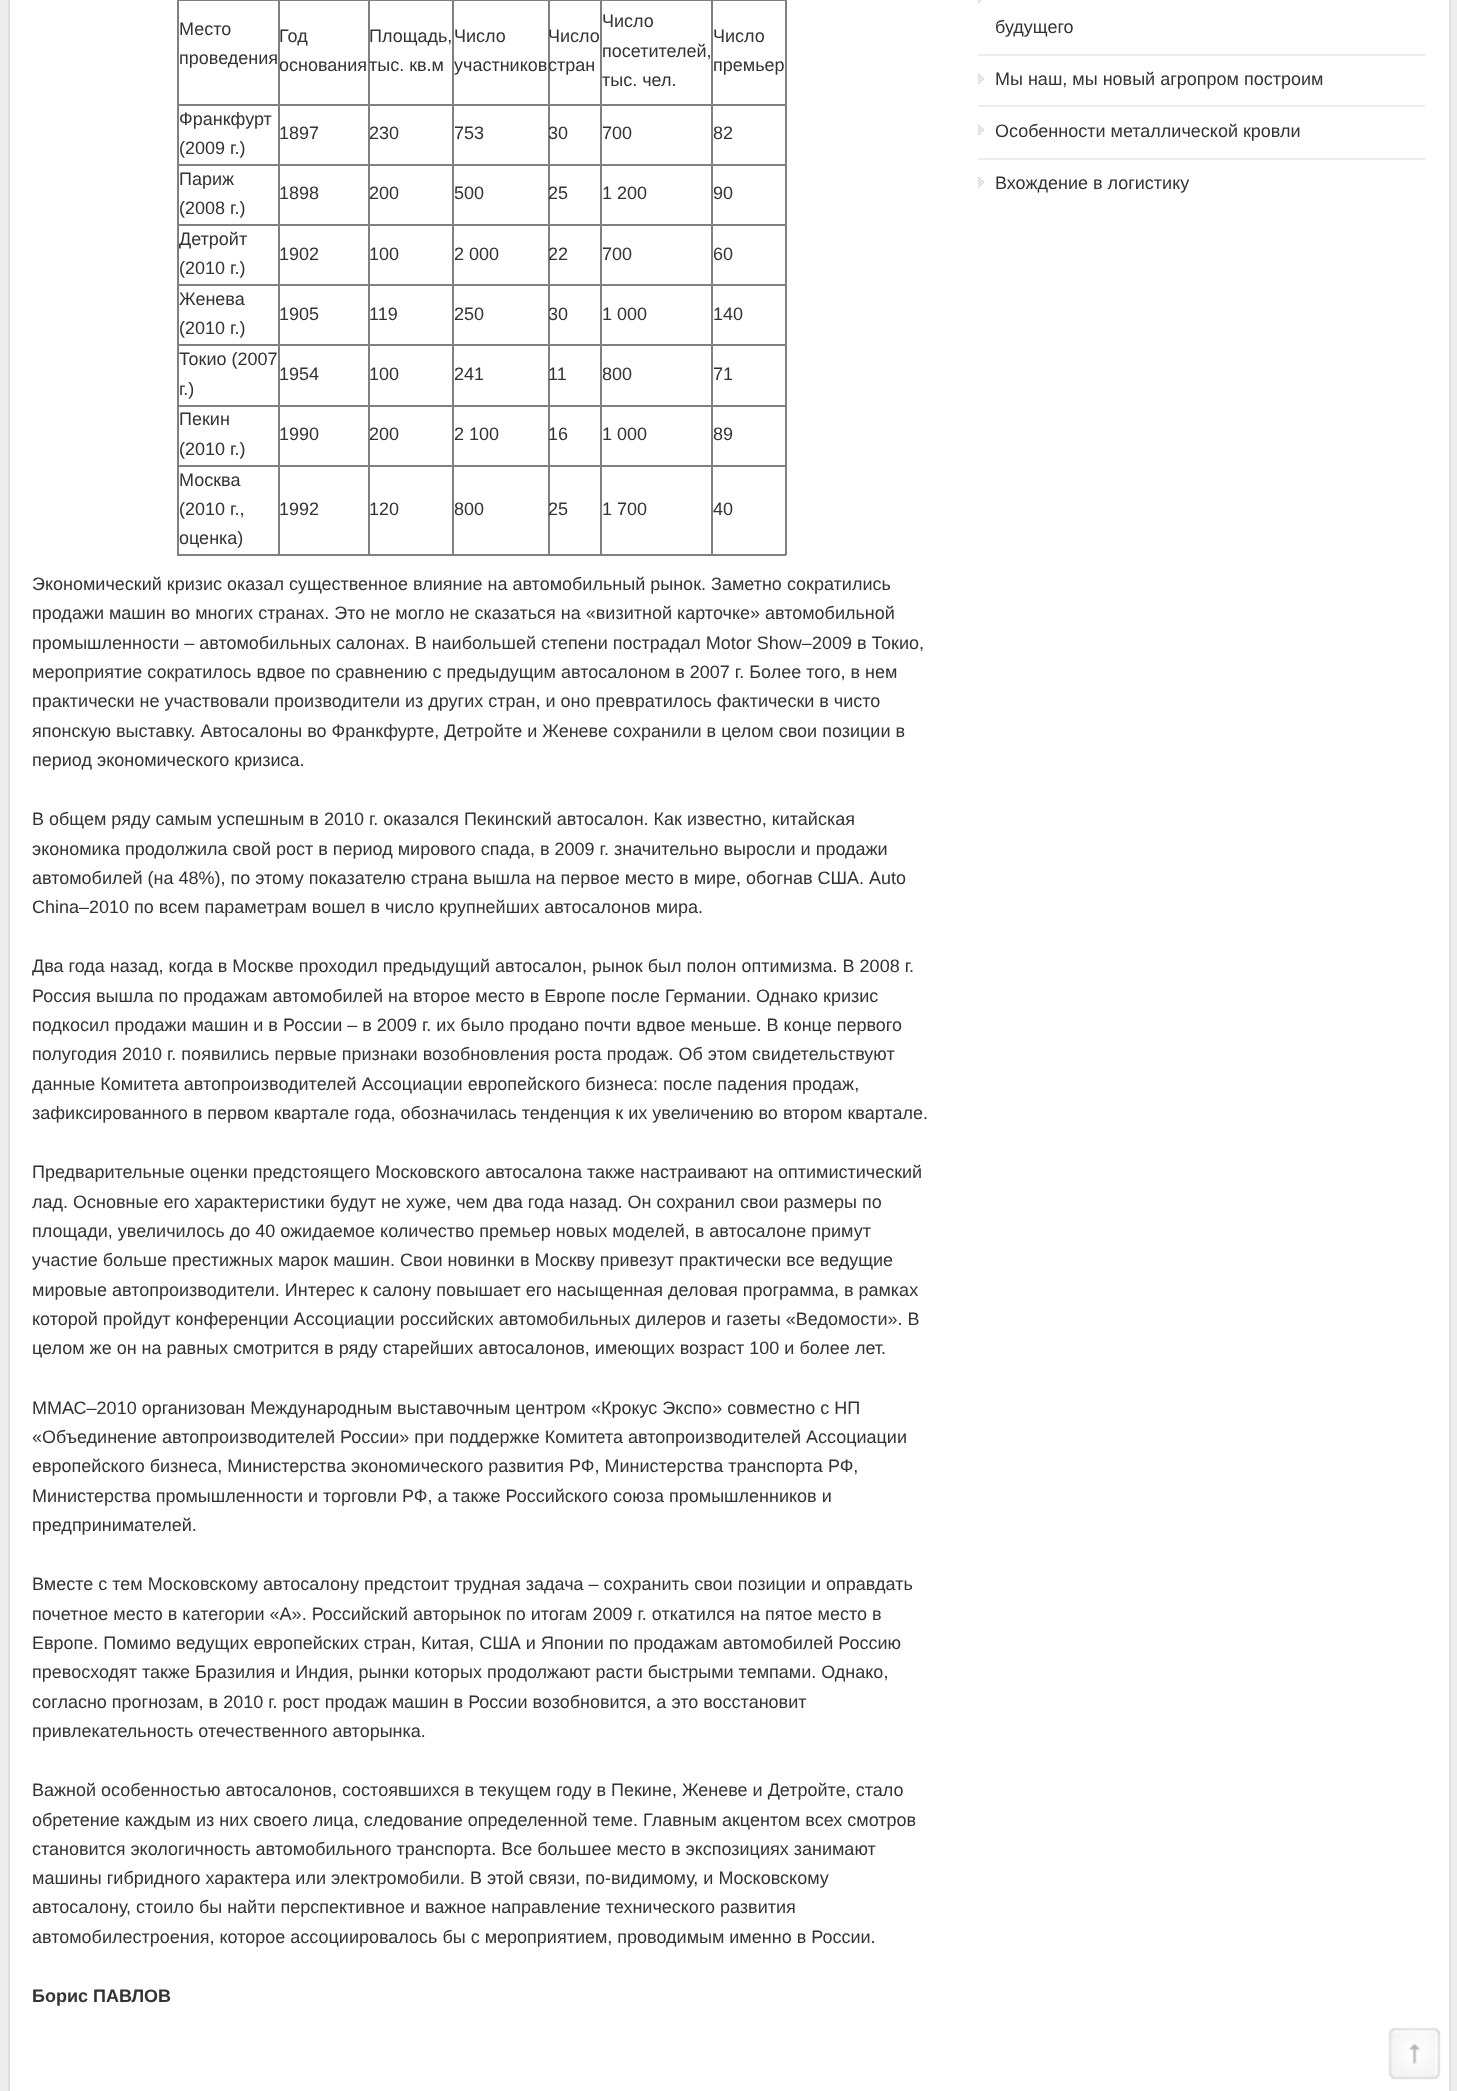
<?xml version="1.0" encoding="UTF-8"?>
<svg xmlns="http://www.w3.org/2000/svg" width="1457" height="2091">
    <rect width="100%" height="100%" fill="#EDEDED"/>
    <rect x="9" y="-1" width="1441" height="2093" fill="#FFFFFF" stroke="#DFDFDF" stroke-width="2"/>
    <rect x="177" y="0" width="609" height="1" fill="#808080"/>
    <rect x="785" y="0" width="2" height="555" fill="#808080"/>
    <rect x="177" y="554" width="609" height="2" fill="#808080"/>
    <rect x="177" y="0" width="2" height="555" fill="#808080"/>
    <text font-family="Liberation Sans" font-size="18" fill="#333333">
        <tspan x="179" y="35">Место</tspan>
        <tspan x="179" y="64">проведения</tspan>
    </text>
    <rect x="711" y="104" width="75" height="2" fill="#808080"/>
    <rect x="711" y="164" width="75" height="2" fill="#808080"/>
    <rect x="711" y="224" width="75" height="2" fill="#808080"/>
    <rect x="711" y="284" width="75" height="2" fill="#808080"/>
    <rect x="711" y="344" width="75" height="2" fill="#808080"/>
    <rect x="711" y="405" width="75" height="2" fill="#808080"/>
    <rect x="711" y="465" width="75" height="2" fill="#808080"/>
    <rect x="711" y="465" width="2" height="90" fill="#808080"/>
    <rect x="600" y="465" width="113" height="2" fill="#808080"/>
    <rect x="711" y="405" width="2" height="62" fill="#808080"/>
    <rect x="600" y="405" width="113" height="2" fill="#808080"/>
    <rect x="711" y="344" width="2" height="63" fill="#808080"/>
    <rect x="600" y="344" width="113" height="2" fill="#808080"/>
    <rect x="711" y="284" width="2" height="61" fill="#808080"/>
    <rect x="600" y="284" width="113" height="2" fill="#808080"/>
    <rect x="711" y="224" width="2" height="61" fill="#808080"/>
    <rect x="600" y="224" width="113" height="2" fill="#808080"/>
    <rect x="711" y="164" width="2" height="61" fill="#808080"/>
    <rect x="600" y="164" width="113" height="2" fill="#808080"/>
    <rect x="711" y="104" width="2" height="61" fill="#808080"/>
    <rect x="600" y="104" width="113" height="2" fill="#808080"/>
    <rect x="600" y="465" width="2" height="90" fill="#808080"/>
    <rect x="548" y="465" width="54" height="2" fill="#808080"/>
    <rect x="600" y="405" width="2" height="62" fill="#808080"/>
    <rect x="548" y="405" width="54" height="2" fill="#808080"/>
    <rect x="600" y="344" width="2" height="63" fill="#808080"/>
    <rect x="548" y="344" width="54" height="2" fill="#808080"/>
    <rect x="600" y="284" width="2" height="61" fill="#808080"/>
    <rect x="548" y="284" width="54" height="2" fill="#808080"/>
    <rect x="600" y="224" width="2" height="61" fill="#808080"/>
    <rect x="548" y="224" width="54" height="2" fill="#808080"/>
    <rect x="600" y="164" width="2" height="61" fill="#808080"/>
    <rect x="548" y="164" width="54" height="2" fill="#808080"/>
    <rect x="600" y="104" width="2" height="61" fill="#808080"/>
    <rect x="548" y="104" width="54" height="2" fill="#808080"/>
    <rect x="548" y="465" width="2" height="90" fill="#808080"/>
    <rect x="452" y="465" width="97" height="2" fill="#808080"/>
    <rect x="548" y="405" width="2" height="62" fill="#808080"/>
    <rect x="452" y="405" width="97" height="2" fill="#808080"/>
    <rect x="548" y="344" width="2" height="63" fill="#808080"/>
    <rect x="452" y="344" width="97" height="2" fill="#808080"/>
    <rect x="548" y="284" width="2" height="61" fill="#808080"/>
    <rect x="452" y="284" width="97" height="2" fill="#808080"/>
    <rect x="548" y="224" width="2" height="61" fill="#808080"/>
    <rect x="452" y="224" width="97" height="2" fill="#808080"/>
    <rect x="548" y="164" width="2" height="61" fill="#808080"/>
    <rect x="452" y="164" width="97" height="2" fill="#808080"/>
    <rect x="548" y="104" width="2" height="61" fill="#808080"/>
    <rect x="452" y="104" width="97" height="2" fill="#808080"/>
    <rect x="452" y="465" width="2" height="90" fill="#808080"/>
    <rect x="368" y="465" width="85" height="2" fill="#808080"/>
    <rect x="452" y="405" width="2" height="62" fill="#808080"/>
    <rect x="368" y="405" width="85" height="2" fill="#808080"/>
    <rect x="452" y="344" width="2" height="63" fill="#808080"/>
    <rect x="368" y="344" width="85" height="2" fill="#808080"/>
    <rect x="452" y="284" width="2" height="61" fill="#808080"/>
    <rect x="368" y="284" width="85" height="2" fill="#808080"/>
    <rect x="452" y="224" width="2" height="61" fill="#808080"/>
    <rect x="368" y="224" width="85" height="2" fill="#808080"/>
    <rect x="452" y="164" width="2" height="61" fill="#808080"/>
    <rect x="368" y="164" width="85" height="2" fill="#808080"/>
    <rect x="452" y="104" width="2" height="61" fill="#808080"/>
    <rect x="368" y="104" width="85" height="2" fill="#808080"/>
    <rect x="368" y="465" width="2" height="90" fill="#808080"/>
    <rect x="278" y="465" width="91" height="2" fill="#808080"/>
    <rect x="368" y="405" width="2" height="62" fill="#808080"/>
    <rect x="278" y="405" width="91" height="2" fill="#808080"/>
    <rect x="368" y="344" width="2" height="63" fill="#808080"/>
    <rect x="278" y="344" width="91" height="2" fill="#808080"/>
    <rect x="368" y="284" width="2" height="61" fill="#808080"/>
    <rect x="278" y="284" width="91" height="2" fill="#808080"/>
    <rect x="368" y="224" width="2" height="61" fill="#808080"/>
    <rect x="278" y="224" width="91" height="2" fill="#808080"/>
    <rect x="368" y="164" width="2" height="61" fill="#808080"/>
    <rect x="278" y="164" width="91" height="2" fill="#808080"/>
    <rect x="368" y="104" width="2" height="61" fill="#808080"/>
    <rect x="278" y="104" width="91" height="2" fill="#808080"/>
    <rect x="278" y="465" width="2" height="90" fill="#808080"/>
    <rect x="177" y="465" width="102" height="2" fill="#808080"/>
    <rect x="278" y="405" width="2" height="62" fill="#808080"/>
    <rect x="177" y="405" width="102" height="2" fill="#808080"/>
    <rect x="278" y="344" width="2" height="63" fill="#808080"/>
    <rect x="177" y="344" width="102" height="2" fill="#808080"/>
    <rect x="278" y="284" width="2" height="61" fill="#808080"/>
    <rect x="177" y="284" width="102" height="2" fill="#808080"/>
    <rect x="278" y="224" width="2" height="61" fill="#808080"/>
    <rect x="177" y="224" width="102" height="2" fill="#808080"/>
    <rect x="278" y="164" width="2" height="61" fill="#808080"/>
    <rect x="177" y="164" width="102" height="2" fill="#808080"/>
    <rect x="278" y="104" width="2" height="61" fill="#808080"/>
    <rect x="177" y="104" width="102" height="2" fill="#808080"/>
    <rect x="278" y="0" width="2" height="105" fill="#808080"/>
    <text font-family="Liberation Sans" font-size="18" fill="#333333">
        <tspan x="279" y="42">Год</tspan>
        <tspan x="279" y="71">основания</tspan>
    </text>
    <rect x="368" y="0" width="2" height="105" fill="#808080"/>
    <text font-family="Liberation Sans" font-size="18" fill="#333333">
        <tspan x="369" y="42">Площадь,</tspan>
        <tspan x="369" y="71">тыс. кв.м</tspan>
    </text>
    <rect x="452" y="0" width="2" height="105" fill="#808080"/>
    <text font-family="Liberation Sans" font-size="18" fill="#333333">
        <tspan x="454" y="42">Число</tspan>
        <tspan x="454" y="71">участников</tspan>
    </text>
    <rect x="548" y="0" width="2" height="105" fill="#808080"/>
    <text font-family="Liberation Sans" font-size="18" fill="#333333">
        <tspan x="548" y="42">Число</tspan>
        <tspan x="548" y="71">стран</tspan>
    </text>
    <rect x="600" y="0" width="2" height="105" fill="#808080"/>
    <text font-family="Liberation Sans" font-size="18" fill="#333333">
        <tspan x="602" y="27">Число</tspan>
        <tspan x="602" y="57">посетителей,</tspan>
        <tspan x="602" y="86">тыс. чел.</tspan>
    </text>
    <rect x="711" y="0" width="2" height="105" fill="#808080"/>
    <text font-family="Liberation Sans" font-size="18" fill="#333333">
        <tspan x="713" y="42">Число</tspan>
        <tspan x="713" y="71">премьер</tspan>
    </text>
    <text font-family="Liberation Sans" font-size="18" fill="#333333">
        <tspan x="179" y="125">Франкфурт</tspan>
        <tspan x="179" y="154">(2009 г.)</tspan>
    </text>
    <text x="279" y="139" font-family="Liberation Sans" font-size="18" fill="#333333">1897</text>
    <text x="369" y="139" font-family="Liberation Sans" font-size="18" fill="#333333">230</text>
    <text x="454" y="139" font-family="Liberation Sans" font-size="18" fill="#333333">753</text>
    <text x="548" y="139" font-family="Liberation Sans" font-size="18" fill="#333333">30</text>
    <text x="602" y="139" font-family="Liberation Sans" font-size="18" fill="#333333">700</text>
    <text x="713" y="139" font-family="Liberation Sans" font-size="18" fill="#333333">82</text>
    <text font-family="Liberation Sans" font-size="18" fill="#333333">
        <tspan x="179" y="185">Париж</tspan>
        <tspan x="179" y="214">(2008 г.)</tspan>
    </text>
    <text x="279" y="199" font-family="Liberation Sans" font-size="18" fill="#333333">1898</text>
    <text x="369" y="199" font-family="Liberation Sans" font-size="18" fill="#333333">200</text>
    <text x="454" y="199" font-family="Liberation Sans" font-size="18" fill="#333333">500</text>
    <text x="548" y="199" font-family="Liberation Sans" font-size="18" fill="#333333">25</text>
    <text x="602" y="199" font-family="Liberation Sans" font-size="18" fill="#333333">1 200</text>
    <text x="713" y="199" font-family="Liberation Sans" font-size="18" fill="#333333">90</text>
    <text font-family="Liberation Sans" font-size="18" fill="#333333">
        <tspan x="179" y="245">Детройт</tspan>
        <tspan x="179" y="274">(2010 г.)</tspan>
    </text>
    <text x="279" y="260" font-family="Liberation Sans" font-size="18" fill="#333333">1902</text>
    <text x="369" y="260" font-family="Liberation Sans" font-size="18" fill="#333333">100</text>
    <text x="454" y="260" font-family="Liberation Sans" font-size="18" fill="#333333">2 000</text>
    <text x="548" y="260" font-family="Liberation Sans" font-size="18" fill="#333333">22</text>
    <text x="602" y="260" font-family="Liberation Sans" font-size="18" fill="#333333">700</text>
    <text x="713" y="260" font-family="Liberation Sans" font-size="18" fill="#333333">60</text>
    <text font-family="Liberation Sans" font-size="18" fill="#333333">
        <tspan x="179" y="305">Женева</tspan>
        <tspan x="179" y="334">(2010 г.)</tspan>
    </text>
    <text x="279" y="320" font-family="Liberation Sans" font-size="18" fill="#333333">1905</text>
    <text x="369" y="320" font-family="Liberation Sans" font-size="18" fill="#333333">119</text>
    <text x="454" y="320" font-family="Liberation Sans" font-size="18" fill="#333333">250</text>
    <text x="548" y="320" font-family="Liberation Sans" font-size="18" fill="#333333">30</text>
    <text x="602" y="320" font-family="Liberation Sans" font-size="18" fill="#333333">1 000</text>
    <text x="713" y="320" font-family="Liberation Sans" font-size="18" fill="#333333">140</text>
    <text font-family="Liberation Sans" font-size="18" fill="#333333">
        <tspan x="179" y="365">Токио (2007</tspan>
        <tspan x="179" y="395">г.)</tspan>
    </text>
    <text x="279" y="380" font-family="Liberation Sans" font-size="18" fill="#333333">1954</text>
    <text x="369" y="380" font-family="Liberation Sans" font-size="18" fill="#333333">100</text>
    <text x="454" y="380" font-family="Liberation Sans" font-size="18" fill="#333333">241</text>
    <text x="548" y="380" font-family="Liberation Sans" font-size="18" fill="#333333">11</text>
    <text x="602" y="380" font-family="Liberation Sans" font-size="18" fill="#333333">800</text>
    <text x="713" y="380" font-family="Liberation Sans" font-size="18" fill="#333333">71</text>
    <text font-family="Liberation Sans" font-size="18" fill="#333333">
        <tspan x="179" y="425">Пекин</tspan>
        <tspan x="179" y="455">(2010 г.)</tspan>
    </text>
    <text x="279" y="440" font-family="Liberation Sans" font-size="18" fill="#333333">1990</text>
    <text x="369" y="440" font-family="Liberation Sans" font-size="18" fill="#333333">200</text>
    <text x="454" y="440" font-family="Liberation Sans" font-size="18" fill="#333333">2 100</text>
    <text x="548" y="440" font-family="Liberation Sans" font-size="18" fill="#333333">16</text>
    <text x="602" y="440" font-family="Liberation Sans" font-size="18" fill="#333333">1 000</text>
    <text x="713" y="440" font-family="Liberation Sans" font-size="18" fill="#333333">89</text>
    <text font-family="Liberation Sans" font-size="18" fill="#333333">
        <tspan x="179" y="486">Москва</tspan>
        <tspan x="179" y="515">(2010 г.,</tspan>
        <tspan x="179" y="544">оценка)</tspan>
    </text>
    <text x="279" y="515" font-family="Liberation Sans" font-size="18" fill="#333333">1992</text>
    <text x="369" y="515" font-family="Liberation Sans" font-size="18" fill="#333333">120</text>
    <text x="454" y="515" font-family="Liberation Sans" font-size="18" fill="#333333">800</text>
    <text x="548" y="515" font-family="Liberation Sans" font-size="18" fill="#333333">25</text>
    <text x="602" y="515" font-family="Liberation Sans" font-size="18" fill="#333333">1 700</text>
    <text x="713" y="515" font-family="Liberation Sans" font-size="18" fill="#333333">40</text>
    <text font-family="Liberation Sans" font-size="18" fill="#333333">
        <tspan x="32" y="590">Экономический кризис оказал существенное влияние на автомобильный рынок. Заметно сократились</tspan>
        <tspan x="32" y="619">продажи машин во многих странах. Это не могло не сказаться на «визитной карточке» автомобильной</tspan>
        <tspan x="32" y="649">промышленности – автомобильных салонах. В наибольшей степени пострадал Motor Show–2009 в Токио,</tspan>
        <tspan x="32" y="678">мероприятие сократилось вдвое по сравнению с предыдущим автосалоном в 2007 г. Более того, в нем</tspan>
        <tspan x="32" y="707">практически не участвовали производители из других стран, и оно превратилось фактически в чисто</tspan>
        <tspan x="32" y="737">японскую выставку. Автосалоны во Франкфурте, Детройте и Женеве сохранили в целом свои позиции в</tspan>
        <tspan x="32" y="766">период экономического кризиса.</tspan>
    </text>
    <text font-family="Liberation Sans" font-size="18" fill="#333333">
        <tspan x="32" y="825">В общем ряду самым успешным в 2010 г. оказался Пекинский автосалон. Как известно, китайская</tspan>
        <tspan x="32" y="855">экономика продолжила свой рост в период мирового спада, в 2009 г. значительно выросли и продажи</tspan>
        <tspan x="32" y="884">автомобилей (на 48%), по этому показателю страна вышла на первое место в мире, обогнав США. Auto</tspan>
        <tspan x="32" y="913">China–2010 по всем параметрам вошел в число крупнейших автосалонов мира.</tspan>
    </text>
    <text font-family="Liberation Sans" font-size="18" fill="#333333">
        <tspan x="32" y="972">Два года назад, когда в Москве проходил предыдущий автосалон, рынок был полон оптимизма. В 2008 г.</tspan>
        <tspan x="32" y="1002">Россия вышла по продажам автомобилей на второе место в Европе после Германии. Однако кризис</tspan>
        <tspan x="32" y="1031">подкосил продажи машин и в России – в 2009 г. их было продано почти вдвое меньше. В конце первого</tspan>
        <tspan x="32" y="1060">полугодия 2010 г. появились первые признаки возобновления роста продаж. Об этом свидетельствуют</tspan>
        <tspan x="32" y="1090">данные Комитета автопроизводителей Ассоциации европейского бизнеса: после падения продаж,</tspan>
        <tspan x="32" y="1119">зафиксированного в первом квартале года, обозначилась тенденция к их увеличению во втором квартале.</tspan>
    </text>
    <text font-family="Liberation Sans" font-size="18" fill="#333333">
        <tspan x="32" y="1178">Предварительные оценки предстоящего Московского автосалона также настраивают на оптимистический</tspan>
        <tspan x="32" y="1208">лад. Основные его характеристики будут не хуже, чем два года назад. Он сохранил свои размеры по</tspan>
        <tspan x="32" y="1237">площади, увеличилось до 40 ожидаемое количество премьер новых моделей, в автосалоне примут</tspan>
        <tspan x="32" y="1266">участие больше престижных марок машин. Свои новинки в Москву привезут практически все ведущие</tspan>
        <tspan x="32" y="1296">мировые автопроизводители. Интерес к салону повышает его насыщенная деловая программа, в рамках</tspan>
        <tspan x="32" y="1325">которой пройдут конференции Ассоциации российских автомобильных дилеров и газеты «Ведомости». В</tspan>
        <tspan x="32" y="1354">целом же он на равных смотрится в ряду старейших автосалонов, имеющих возраст 100 и более лет.</tspan>
    </text>
    <text font-family="Liberation Sans" font-size="18" fill="#333333">
        <tspan x="32" y="1414">ММАС–2010 организован Международным выставочным центром «Крокус Экспо» совместно с НП</tspan>
        <tspan x="32" y="1443">«Объединение автопроизводителей России» при поддержке Комитета автопроизводителей Ассоциации</tspan>
        <tspan x="32" y="1472">европейского бизнеса, Министерства экономического развития РФ, Министерства транспорта РФ,</tspan>
        <tspan x="32" y="1502">Министерства промышленности и торговли РФ, а также Российского союза промышленников и</tspan>
        <tspan x="32" y="1531">предпринимателей.</tspan>
    </text>
    <text font-family="Liberation Sans" font-size="18" fill="#333333">
        <tspan x="32" y="1590">Вместе с тем Московскому автосалону предстоит трудная задача – сохранить свои позиции и оправдать</tspan>
        <tspan x="32" y="1620">почетное место в категории «А». Российский авторынок по итогам 2009 г. откатился на пятое место в</tspan>
        <tspan x="32" y="1649">Европе. Помимо ведущих европейских стран, Китая, США и Японии по продажам автомобилей Россию</tspan>
        <tspan x="32" y="1678">превосходят также Бразилия и Индия, рынки которых продолжают расти быстрыми темпами. Однако,</tspan>
        <tspan x="32" y="1708">согласно прогнозам, в 2010 г. рост продаж машин в России возобновится, а это восстановит</tspan>
        <tspan x="32" y="1737">привлекательность отечественного авторынка.</tspan>
    </text>
    <text font-family="Liberation Sans" font-size="18" fill="#333333">
        <tspan x="32" y="1796">Важной особенностью автосалонов, состоявшихся в текущем году в Пекине, Женеве и Детройте, стало</tspan>
        <tspan x="32" y="1826">обретение каждым из них своего лица, следование определенной теме. Главным акцентом всех смотров</tspan>
        <tspan x="32" y="1855">становится экологичность автомобильного транспорта. Все большее место в экспозициях занимают</tspan>
        <tspan x="32" y="1884">машины гибридного характера или электромобили. В этой связи, по-видимому, и Московскому</tspan>
        <tspan x="32" y="1913">автосалону, стоило бы найти перспективное и важное направление технического развития</tspan>
        <tspan x="32" y="1943">автомобилестроения, которое ассоциировалось бы с мероприятием, проводимым именно в России.</tspan>
    </text>
    <text x="32" y="2002" font-family="Liberation Sans" font-size="18" font-weight="700" fill="#333333">Борис ПАВЛОВ</text>
    <image x="978" y="0" width="4" height="3" href="img_01.png"/>
    <text x="995" y="33" font-family="Liberation Sans" font-size="18" fill="#333333">будущего</text>
    <image x="978" y="73" width="6" height="11" href="img_02.png"/>
    <rect x="978" y="54" width="447" height="2" fill="#ECEDE8"/>
    <text x="995" y="85" font-family="Liberation Sans" font-size="18" fill="#333333">Мы наш, мы новый агропром построим</text>
    <image x="978" y="124" width="6" height="11" href="img_02.png"/>
    <rect x="978" y="105" width="447" height="2" fill="#ECEDE8"/>
    <text x="995" y="137" font-family="Liberation Sans" font-size="18" fill="#333333">Особенности металлической кровли</text>
    <image x="978" y="177" width="6" height="11" href="img_03.png"/>
    <rect x="978" y="158" width="447" height="2" fill="#ECEDE8"/>
    <text x="995" y="189" font-family="Liberation Sans" font-size="18" fill="#333333">Вхождение в логистику</text>
    <image x="1388" y="2027" width="53" height="53" href="img_04.png"/>
</svg>
